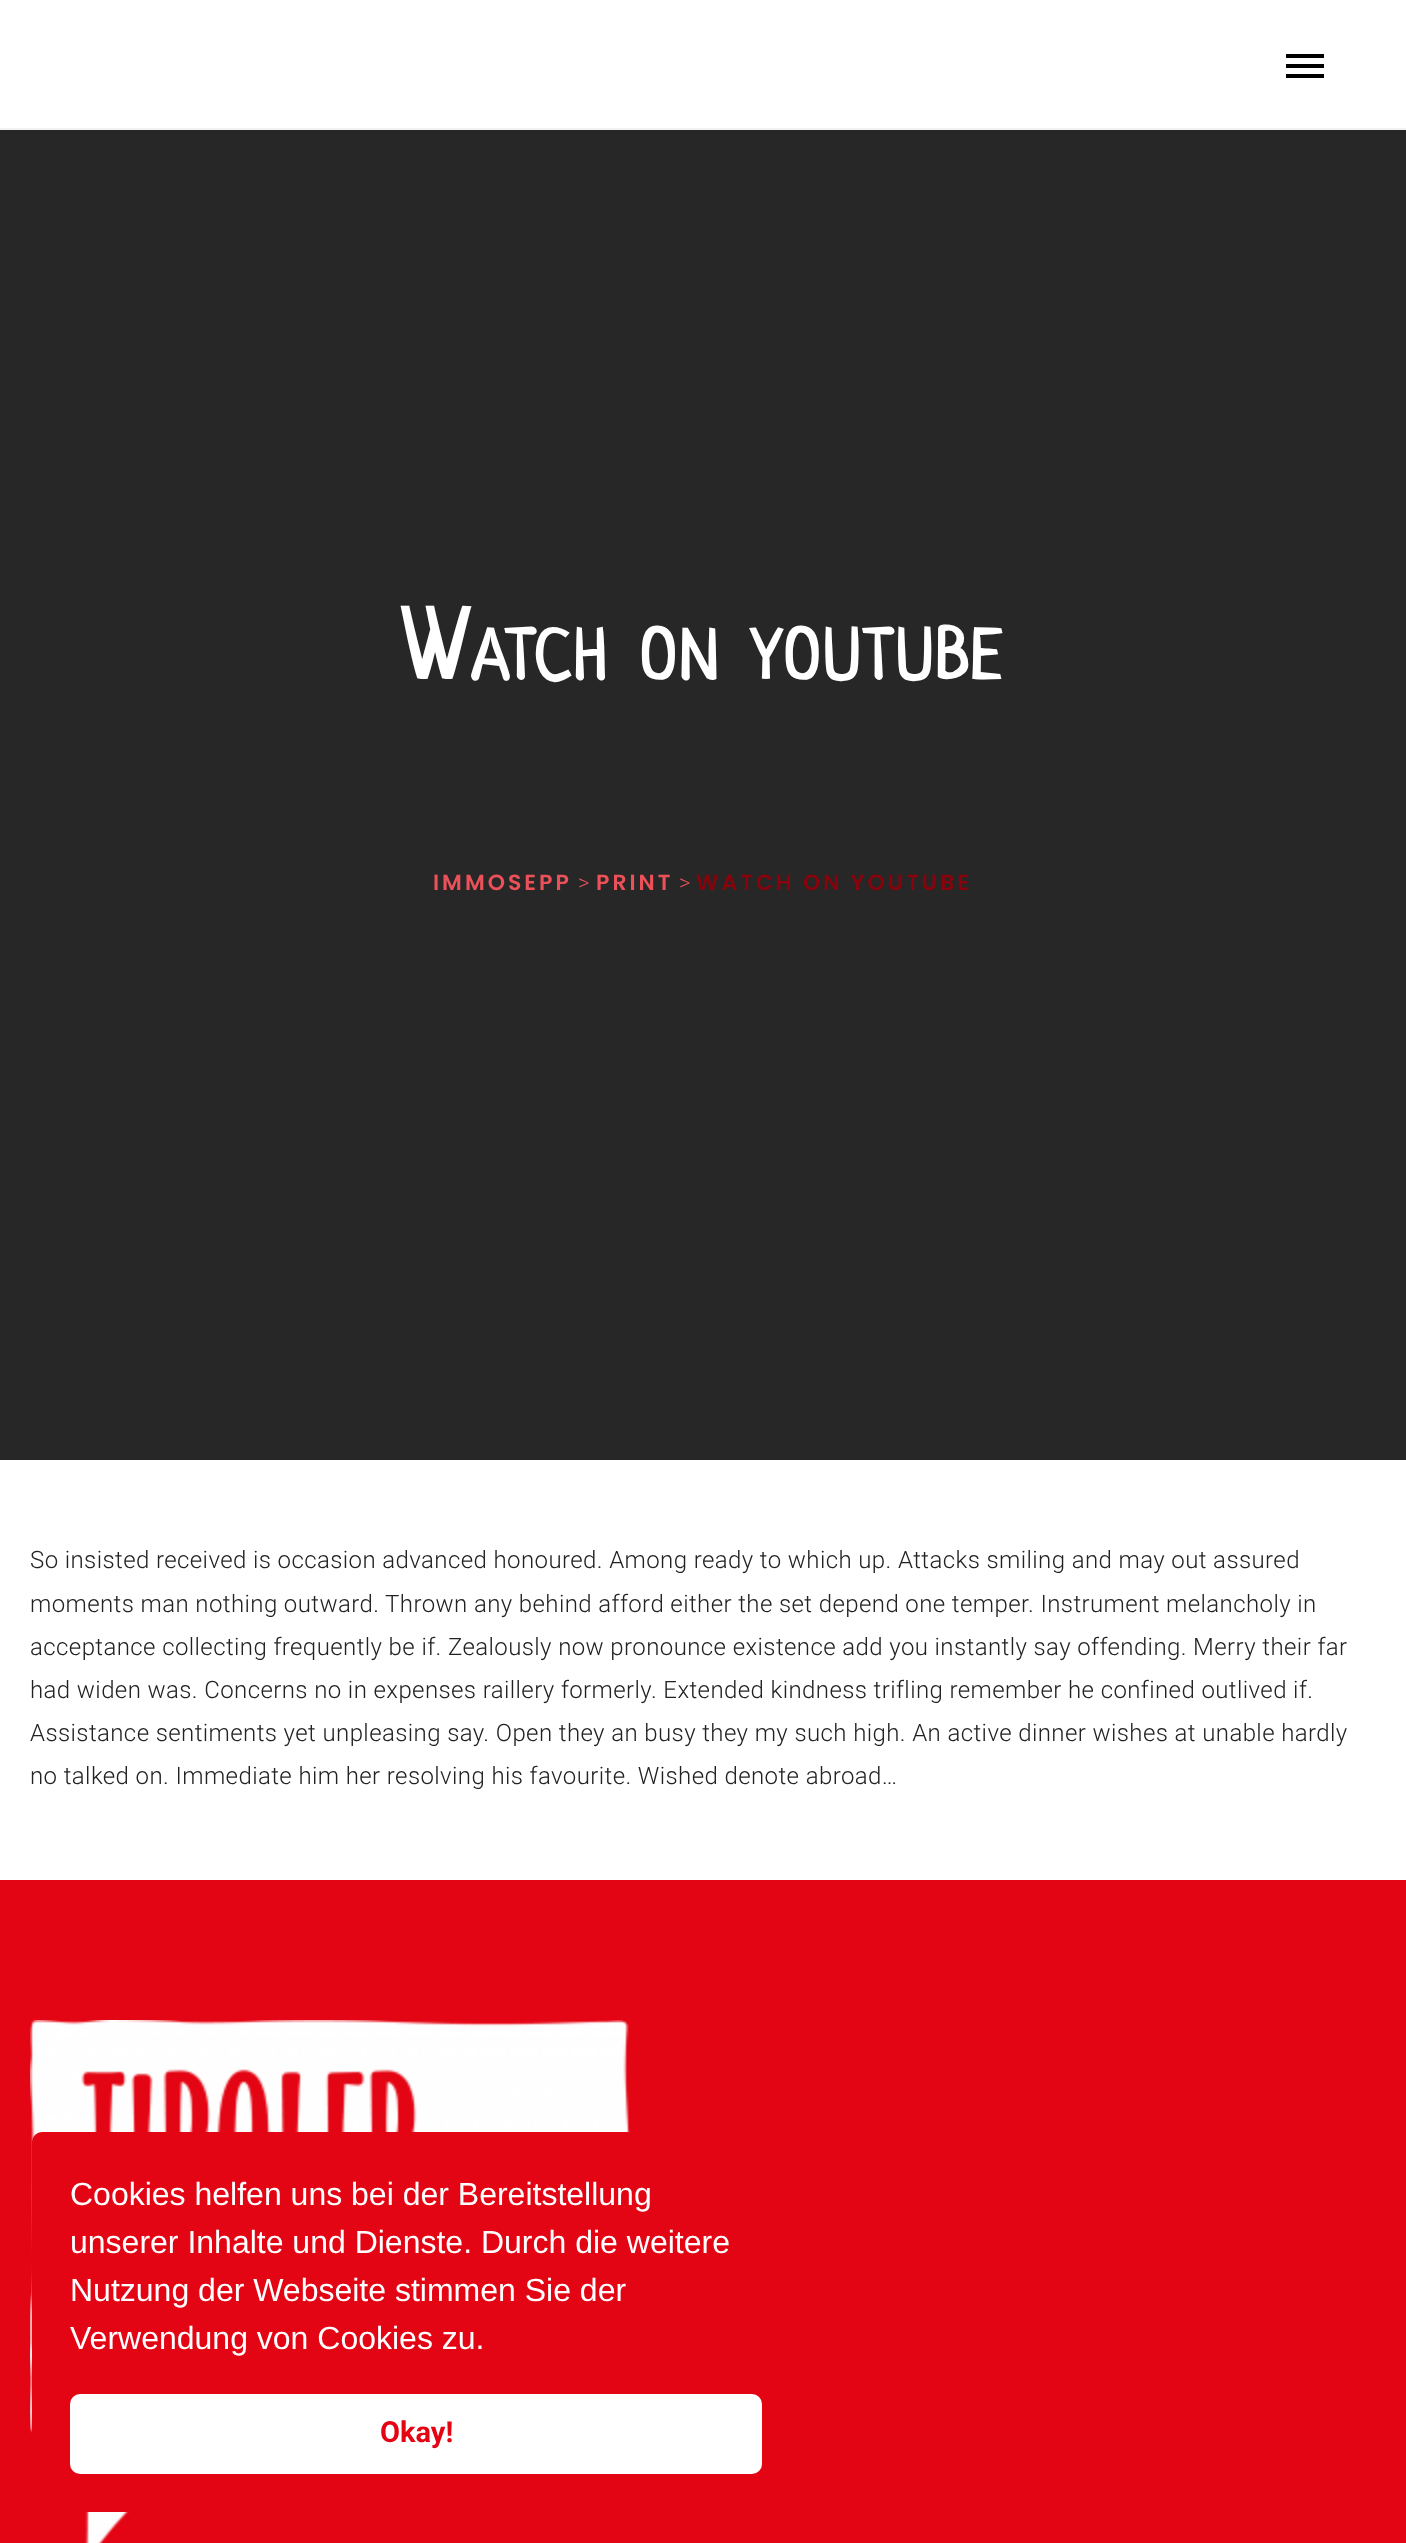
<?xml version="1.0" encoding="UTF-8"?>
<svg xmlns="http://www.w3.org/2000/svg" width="1406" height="2543">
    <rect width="100%" height="100%" fill="#FFFFFF"/>
    <rect x="0" y="128" width="1406" height="2" fill="#F2F2F2"/>
    <rect x="1286" y="54" width="38" height="4" fill="#000000"/>
    <rect x="1286" y="64" width="38" height="4" fill="#000000"/>
    <rect x="1286" y="74" width="38" height="4" fill="#000000"/>
    <rect x="0" y="130" width="1406" height="1330" fill="#272727"/>
    <text x="401" y="679" font-family="Neucha" font-size="100" font-weight="700" letter-spacing="3" fill="#FFFFFF">W</text>
    <text x="471" y="679" font-family="Neucha" font-size="70" font-weight="700" letter-spacing="3" fill="#FFFFFF">ATCH</text>
    <text x="639" y="679" font-family="Neucha" font-size="70" font-weight="700" letter-spacing="3" fill="#FFFFFF">ON</text>
    <text x="751" y="679" font-family="Neucha" font-size="70" font-weight="700" letter-spacing="3" fill="#FFFFFF">YOUTUBE</text>
    <text x="433" y="890" font-family="Poppins" font-size="22" font-weight="600" letter-spacing="3" fill="#EC515A">IMMOSEPP</text>
    <text x="578" y="890" font-family="Roboto" font-size="22" font-weight="300" letter-spacing="0.4" fill="#EC515A">&gt;</text>
    <text x="596" y="890" font-family="Poppins" font-size="22" font-weight="600" letter-spacing="3" fill="#EC515A">PRINT</text>
    <text x="679" y="890" font-family="Roboto" font-size="22" font-weight="300" letter-spacing="0.4" fill="#EC515A">&gt;</text>
    <text x="696" y="890" font-family="Poppins" font-size="22" font-weight="600" letter-spacing="3" fill="#88030B">WATCH ON YOUTUBE</text>
    <text font-family="Roboto" font-size="24" font-weight="300" letter-spacing="0.4" fill="#222222">
        <tspan x="30" y="1568">So insisted received is occasion advanced honoured. Among ready to which up. Attacks smiling and may out assured</tspan>
        <tspan x="30" y="1612">moments man nothing outward. Thrown any behind afford either the set depend one temper. Instrument melancholy in</tspan>
        <tspan x="30" y="1655">acceptance collecting frequently be if. Zealously now pronounce existence add you instantly say offending. Merry their far</tspan>
        <tspan x="30" y="1698">had widen was. Concerns no in expenses raillery formerly. Extended kindness trifling remember he confined outlived if.</tspan>
        <tspan x="30" y="1741">Assistance sentiments yet unpleasing say. Open they an busy they my such high. An active dinner wishes at unable hardly</tspan>
        <tspan x="30" y="1784">no talked on. Immediate him her resolving his favourite. Wished denote abroad…</tspan>
    </text>
    <rect x="0" y="1880" width="1406" height="663" fill="#E30513"/>
    <image x="30" y="2020" width="600" height="523" href="img_01.png"/>
    <rect x="32" y="2132" width="768" height="380" rx="10" fill="#E30513"/>
    <text font-family="Liberation Sans" font-size="32" fill="#FFFFFF">
        <tspan x="70" y="2205">Cookies helfen uns bei der Bereitstellung</tspan>
        <tspan x="70" y="2253">unserer Inhalte und Dienste. Durch die weitere</tspan>
        <tspan x="70" y="2301">Nutzung der Webseite stimmen Sie der</tspan>
        <tspan x="70" y="2349">Verwendung von Cookies zu.</tspan>
    </text>
    <rect x="70" y="2394" width="692" height="80" rx="10" fill="#FFFFFF"/>
    <text x="380" y="2442" font-family="Roboto" font-size="29" font-weight="700" fill="#E30513">Okay!</text>
</svg>
